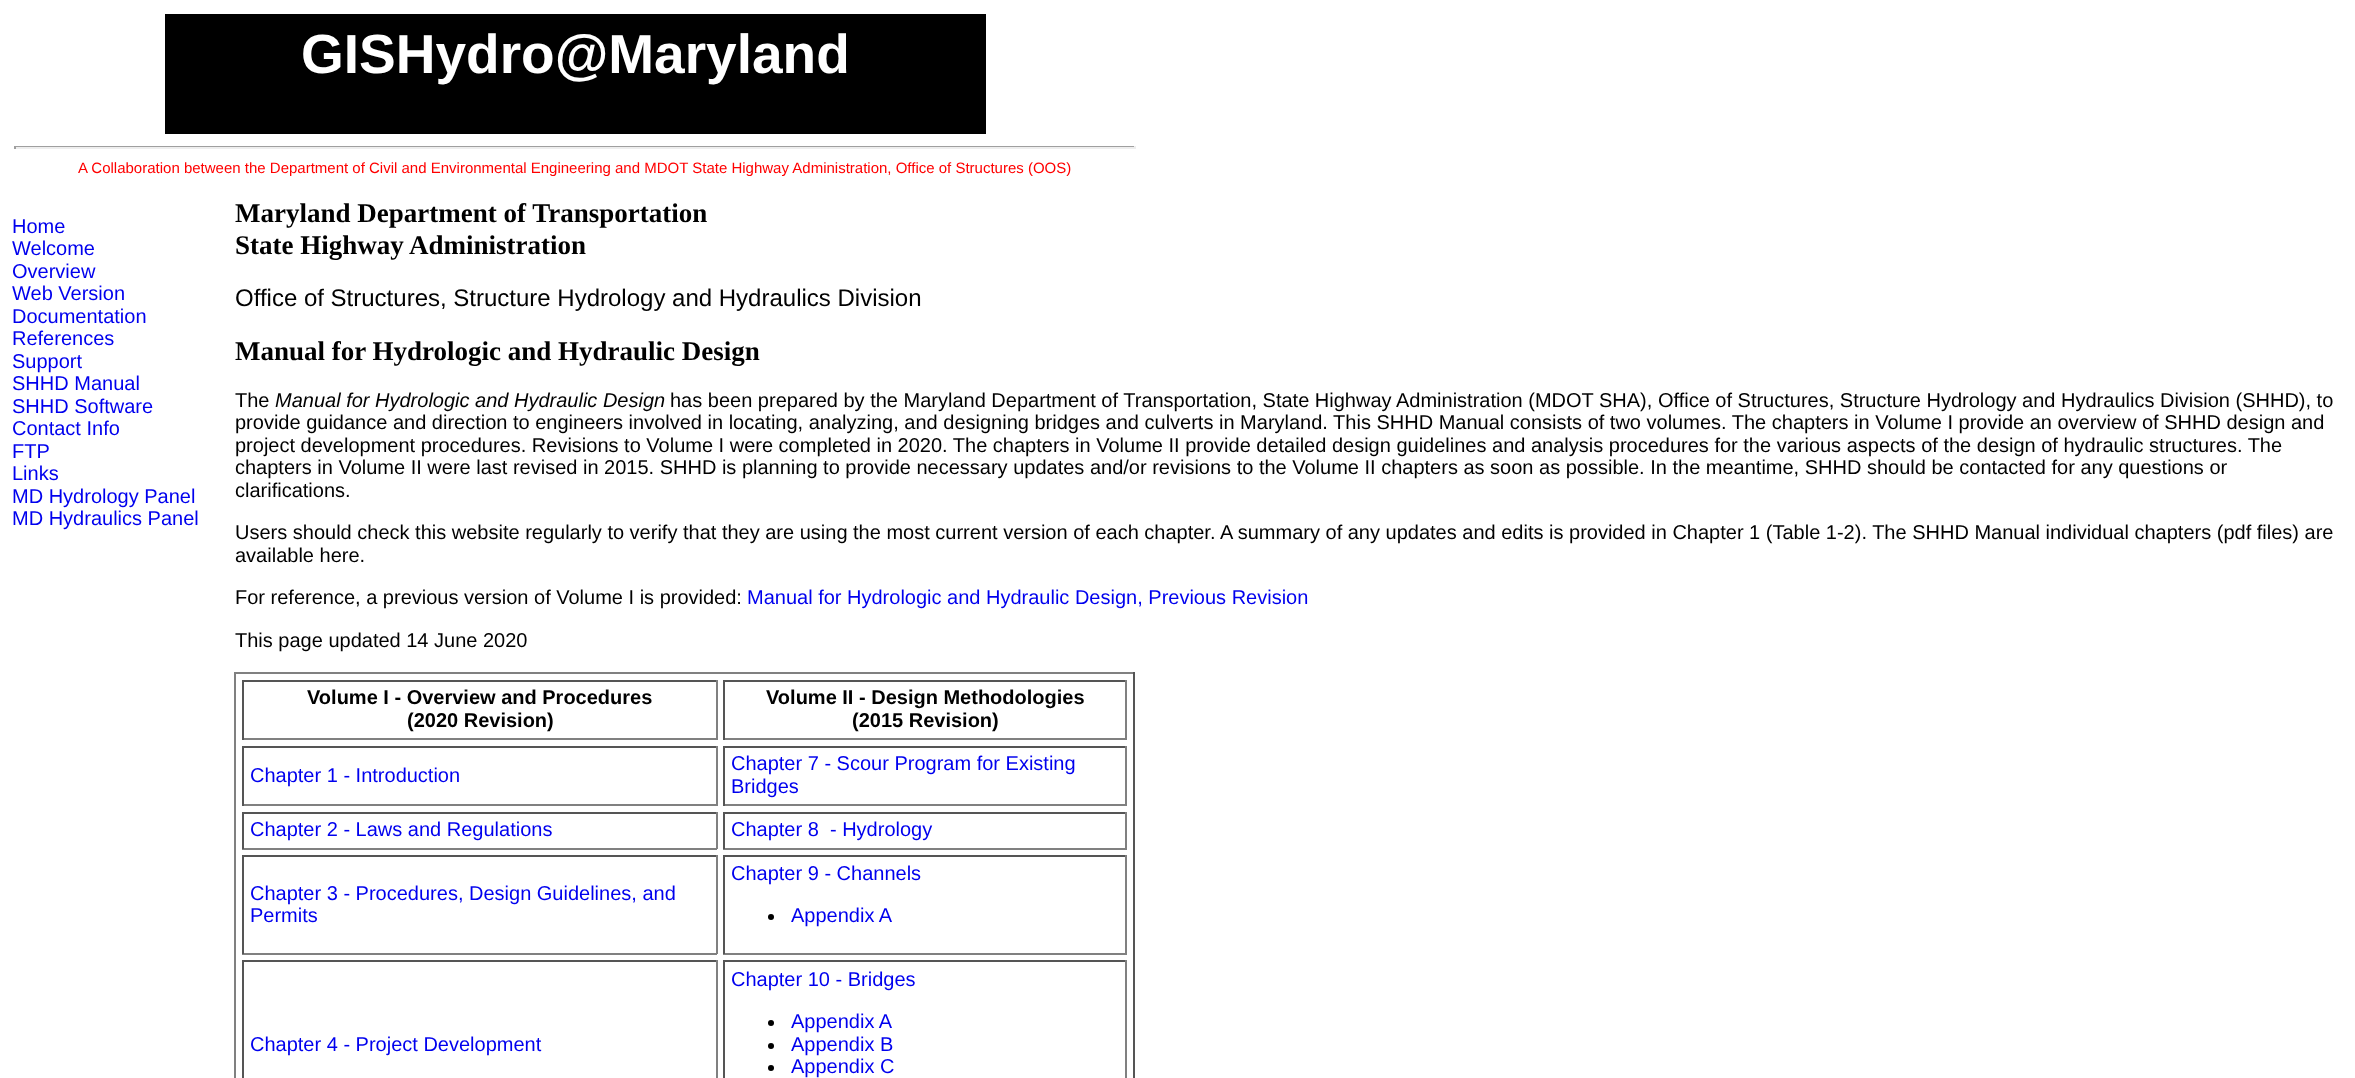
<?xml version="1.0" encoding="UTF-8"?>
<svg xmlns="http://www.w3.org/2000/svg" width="2355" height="1078">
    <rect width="100%" height="100%" fill="#FFFFFF"/>
    <rect x="165" y="14" width="821" height="120" fill="#000000"/>
    <text x="301" y="73" font-family="Liberation Sans" font-size="55" font-weight="700" fill="#FFFFFF">GISHydro@Maryland</text>
    <rect x="14" y="146" width="1122" height="1" fill="#9F9F9F"/>
    <rect x="1134" y="146" width="2" height="3" fill="#EEEEEE"/>
    <rect x="14" y="147" width="1122" height="2" fill="#EEEEEE"/>
    <rect x="14" y="146" width="2" height="3" fill="#9F9F9F"/>
    <text x="78" y="173" font-family="Liberation Sans" font-size="15" fill="#FF0000">A Collaboration between the Department of Civil and Environmental Engineering and MDOT State Highway Administration, Office of Structures (OOS)</text>
    <text font-family="Liberation Sans" font-size="20" fill="#0000EE">
        <tspan x="12" y="233">Home</tspan>
        <tspan x="12" y="255">Welcome</tspan>
        <tspan x="12" y="278">Overview</tspan>
        <tspan x="12" y="300">Web Version</tspan>
        <tspan x="12" y="323">Documentation</tspan>
        <tspan x="12" y="345">References</tspan>
        <tspan x="12" y="368">Support</tspan>
        <tspan x="12" y="390">SHHD Manual</tspan>
        <tspan x="12" y="413">SHHD Software</tspan>
        <tspan x="12" y="435">Contact Info</tspan>
        <tspan x="12" y="458">FTP</tspan>
        <tspan x="12" y="480">Links</tspan>
        <tspan x="12" y="503">MD Hydrology Panel</tspan>
        <tspan x="12" y="525">MD Hydraulics Panel</tspan>
    </text>
    <text font-family="Liberation Serif" font-size="27" font-weight="700" fill="#000000">
        <tspan x="235" y="222">Maryland Department of Transportation</tspan>
        <tspan x="235" y="254">State Highway Administration</tspan>
    </text>
    <text x="235" y="306" font-family="Liberation Sans" font-size="24" fill="#000000">Office of Structures, Structure Hydrology and Hydraulics Division</text>
    <text x="235" y="360" font-family="Liberation Serif" font-size="27" font-weight="700" fill="#000000">Manual for Hydrologic and Hydraulic Design</text>
    <text x="235" y="407" font-family="Liberation Sans" font-size="20" fill="#000000">The</text>
    <text x="275" y="407" font-family="Liberation Sans" font-size="20" font-style="italic" fill="#000000">Manual for Hydrologic and Hydraulic Design</text>
    <text x="670" y="407" font-family="Liberation Sans" font-size="20" fill="#000000">has been prepared by the Maryland Department of Transportation, State Highway Administration (MDOT SHA), Office of Structures, Structure Hydrology and Hydraulics Division (SHHD), to</text>
    <text font-family="Liberation Sans" font-size="20" fill="#000000">
        <tspan x="235" y="429">provide guidance and direction to engineers involved in locating, analyzing, and designing bridges and culverts in Maryland. This SHHD Manual consists of two volumes. The chapters in Volume I provide an overview of SHHD design and</tspan>
        <tspan x="235" y="452">project development procedures. Revisions to Volume I were completed in 2020. The chapters in Volume II provide detailed design guidelines and analysis procedures for the various aspects of the design of hydraulic structures. The</tspan>
        <tspan x="235" y="474">chapters in Volume II were last revised in 2015. SHHD is planning to provide necessary updates and/or revisions to the Volume II chapters as soon as possible. In the meantime, SHHD should be contacted for any questions or</tspan>
        <tspan x="235" y="497">clarifications.</tspan>
    </text>
    <text font-family="Liberation Sans" font-size="20" fill="#000000">
        <tspan x="235" y="539">Users should check this website regularly to verify that they are using the most current version of each chapter. A summary of any updates and edits is provided in Chapter 1 (Table 1-2). The SHHD Manual individual chapters (pdf files) are</tspan>
        <tspan x="235" y="562">available here.</tspan>
    </text>
    <text x="235" y="604" font-family="Liberation Sans" font-size="20" fill="#000000">For reference, a previous version of Volume I is provided:</text>
    <text x="747" y="604" font-family="Liberation Sans" font-size="20" fill="#0000EE">Manual for Hydrologic and Hydraulic Design, Previous Revision</text>
    <text x="235" y="647" font-family="Liberation Sans" font-size="20" fill="#000000">This page updated 14 June 2020</text>
    <rect x="234" y="672" width="900" height="2" fill="#808080"/>
    <rect x="1133" y="672" width="2" height="406" fill="#555555"/>
    <rect x="234" y="672" width="2" height="406" fill="#808080"/>
    <rect x="242" y="680" width="475" height="2" fill="#555555"/>
    <rect x="716" y="680" width="2" height="60" fill="#808080"/>
    <rect x="242" y="738" width="475" height="2" fill="#808080"/>
    <rect x="242" y="680" width="2" height="60" fill="#555555"/>
    <text x="307" y="704" font-family="Liberation Sans" font-size="20" font-weight="700" fill="#000000">Volume I - Overview and Procedures</text>
    <text x="407" y="727" font-family="Liberation Sans" font-size="20" font-weight="700" fill="#000000">(2020 Revision)</text>
    <rect x="723" y="680" width="404" height="2" fill="#555555"/>
    <rect x="1125" y="680" width="2" height="60" fill="#808080"/>
    <rect x="723" y="738" width="404" height="2" fill="#808080"/>
    <rect x="723" y="680" width="2" height="60" fill="#555555"/>
    <text x="766" y="704" font-family="Liberation Sans" font-size="20" font-weight="700" fill="#000000">Volume II - Design Methodologies</text>
    <text x="852" y="727" font-family="Liberation Sans" font-size="20" font-weight="700" fill="#000000">(2015 Revision)</text>
    <rect x="242" y="746" width="475" height="2" fill="#555555"/>
    <rect x="716" y="746" width="2" height="60" fill="#808080"/>
    <rect x="242" y="804" width="475" height="2" fill="#808080"/>
    <rect x="242" y="746" width="2" height="60" fill="#555555"/>
    <text x="250" y="782" font-family="Liberation Sans" font-size="20" fill="#0000EE">Chapter 1 - Introduction</text>
    <rect x="723" y="746" width="404" height="2" fill="#555555"/>
    <rect x="1125" y="746" width="2" height="60" fill="#808080"/>
    <rect x="723" y="804" width="404" height="2" fill="#808080"/>
    <rect x="723" y="746" width="2" height="60" fill="#555555"/>
    <text font-family="Liberation Sans" font-size="20" fill="#0000EE">
        <tspan x="731" y="770">Chapter 7 - Scour Program for Existing</tspan>
        <tspan x="731" y="793">Bridges</tspan>
    </text>
    <rect x="242" y="812" width="475" height="2" fill="#555555"/>
    <rect x="716" y="812" width="2" height="37" fill="#808080"/>
    <rect x="242" y="848" width="475" height="2" fill="#808080"/>
    <rect x="242" y="812" width="2" height="37" fill="#555555"/>
    <text x="250" y="836" font-family="Liberation Sans" font-size="20" fill="#0000EE">Chapter 2 - Laws and Regulations</text>
    <rect x="723" y="812" width="404" height="2" fill="#555555"/>
    <rect x="1125" y="812" width="2" height="37" fill="#808080"/>
    <rect x="723" y="848" width="404" height="2" fill="#808080"/>
    <rect x="723" y="812" width="2" height="37" fill="#555555"/>
    <text x="731" y="836" font-family="Liberation Sans" font-size="20" fill="#0000EE" xml:space="preserve">Chapter 8  - Hydrology</text>
    <rect x="242" y="855" width="475" height="2" fill="#555555"/>
    <rect x="716" y="855" width="2" height="99" fill="#808080"/>
    <rect x="242" y="953" width="475" height="2" fill="#808080"/>
    <rect x="242" y="855" width="2" height="99" fill="#555555"/>
    <text font-family="Liberation Sans" font-size="20" fill="#0000EE">
        <tspan x="250" y="900">Chapter 3 - Procedures, Design Guidelines, and</tspan>
        <tspan x="250" y="922">Permits</tspan>
    </text>
    <rect x="723" y="855" width="404" height="2" fill="#555555"/>
    <rect x="1125" y="855" width="2" height="99" fill="#808080"/>
    <rect x="723" y="953" width="404" height="2" fill="#808080"/>
    <rect x="723" y="855" width="2" height="99" fill="#555555"/>
    <text x="731" y="880" font-family="Liberation Sans" font-size="20" fill="#0000EE">Chapter 9 - Channels</text>
    <circle cx="771" cy="917" r="3" fill="#000000"/>
    <text x="791" y="922" font-family="Liberation Sans" font-size="20" fill="#0000EE">Appendix A</text>
    <rect x="242" y="960" width="475" height="2" fill="#555555"/>
    <rect x="716" y="960" width="2" height="118" fill="#808080"/>
    <rect x="242" y="960" width="2" height="118" fill="#555555"/>
    <text x="250" y="1051" font-family="Liberation Sans" font-size="20" fill="#0000EE">Chapter 4 - Project Development</text>
    <rect x="723" y="960" width="404" height="2" fill="#555555"/>
    <rect x="1125" y="960" width="2" height="118" fill="#808080"/>
    <rect x="723" y="960" width="2" height="118" fill="#555555"/>
    <text x="731" y="986" font-family="Liberation Sans" font-size="20" fill="#0000EE">Chapter 10 - Bridges</text>
    <circle cx="771" cy="1023" r="3" fill="#000000"/>
    <text x="791" y="1028" font-family="Liberation Sans" font-size="20" fill="#0000EE">Appendix A</text>
    <circle cx="771" cy="1046" r="3" fill="#000000"/>
    <text x="791" y="1051" font-family="Liberation Sans" font-size="20" fill="#0000EE">Appendix B</text>
    <circle cx="771" cy="1068" r="3" fill="#000000"/>
    <text x="791" y="1073" font-family="Liberation Sans" font-size="20" fill="#0000EE">Appendix C</text>
</svg>
